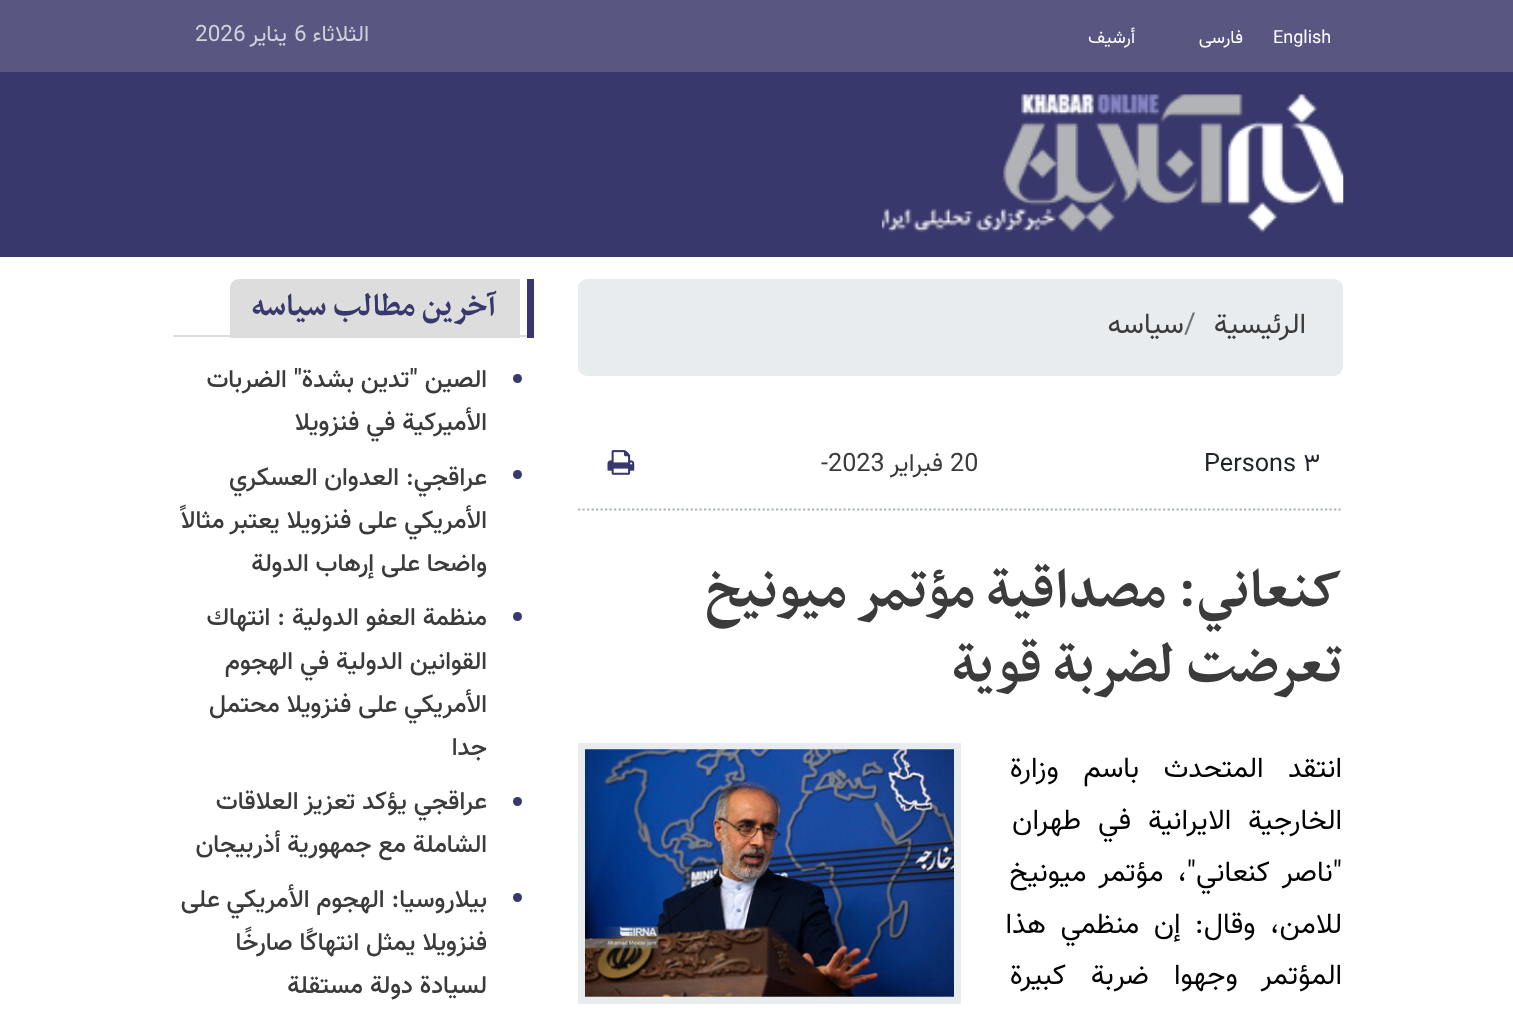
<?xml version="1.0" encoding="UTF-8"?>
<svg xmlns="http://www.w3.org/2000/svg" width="1513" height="1016">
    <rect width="100%" height="100%" fill="#FFFFFF"/>
    <rect x="0" y="72" width="1513" height="185" fill="#38386C"/>
    <rect x="0" y="0" width="1513" height="72" fill="#595782"/>
    <text x="1273" y="43" font-family="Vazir" font-size="18" fill="#FFFFFF">English</text>
    <text x="1243" y="43" font-family="Vazir" font-size="18" direction="rtl" fill="#FFFFFF">فارسی</text>
    <text x="1135" y="43" font-family="Vazir" font-size="18" direction="rtl" fill="#FFFFFF">أرشيف</text>
    <text x="369" y="41" font-family="Vazir" font-size="22.5" direction="rtl" fill="#CED4DA">الثلاثاء</text>
    <text x="294" y="41" font-family="Vazir" font-size="22.5" fill="#CED4DA">6</text>
    <text x="287" y="41" font-family="Vazir" font-size="22.5" direction="rtl" fill="#CED4DA">يناير</text>
    <text x="195" y="41" font-family="Vazir" font-size="22.5" fill="#CED4DA">2026</text>
    <image x="882" y="94" width="462" height="139" href="img_01.png"/>
    <rect x="578" y="279" width="765" height="97" rx="9" fill="#E9ECEF"/>
    <text x="1306" y="333" font-family="Vazir" font-size="28.75" direction="rtl" fill="#3B3B3B">الرئيسية</text>
    <text x="1184" y="333" font-family="Vazir" font-size="28.75" fill="#6C757D">/</text>
    <text x="1184" y="333" font-family="Vazir" font-size="28.75" direction="rtl" fill="#3B3B3B">سیاسه</text>
    <text x="1204" y="471" font-family="Vazir" font-size="25.25" fill="#212529">Persons ٣</text>
    <text x="950" y="471" font-family="Vazir" font-size="25.25" fill="#3B3B3B">20</text>
    <text x="943" y="471" font-family="Vazir" font-size="25.25" direction="rtl" fill="#3B3B3B">فبراير</text>
    <text x="821" y="471" font-family="Vazir" font-size="25.25" fill="#3B3B3B">-2023</text>
    <image x="607" y="450" width="28" height="25" href="img_02.png"/>
    <path d="M 578 509.5 H 1343" fill="none" stroke="#ADB5BD" stroke-width="2.2" stroke-dasharray="2.25 2.25"/>
    <text font-family="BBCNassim" font-size="63" font-weight="700" direction="rtl" fill="#3B3B3B">
        <tspan x="1342" y="606">کنعاني: مصداقية مؤتمر ميونيخ</tspan>
        <tspan x="1342" y="681">تعرضت لضربة قوية</tspan>
    </text>
    <text font-family="Vazir" font-size="28.75" direction="rtl" fill="#000000">
        <tspan x="1342" y="777" word-spacing="16.5">انتقد المتحدث باسم وزارة</tspan>
        <tspan x="1342" y="829" word-spacing="9">الخارجية الايرانية في طهران</tspan>
        <tspan x="1342" y="881" word-spacing="6">"ناصر كنعاني"، مؤتمر ميونيخ</tspan>
        <tspan x="1342" y="933" word-spacing="6.5">للامن، وقال: إن منظمي هذا</tspan>
        <tspan x="1342" y="984" word-spacing="17">المؤتمر وجهوا ضربة كبيرة</tspan>
    </text>
    <rect x="581.5" y="746.5" width="376" height="254" fill="none" stroke="#E9ECEF" stroke-width="7"/>
    <image x="585" y="749" width="369" height="248" href="img_03.png"/>
    <rect x="173" y="335" width="360" height="2" fill="#DDDDDD"/>
    <path d="M 239 279 H 520 V 338 H 230 V 288 C 230 283 234 279 239 279 Z" fill="#DDDDDD"/>
    <rect x="527" y="279" width="7" height="59" fill="#38386C"/>
    <text x="496" y="315" font-family="BBCNassim" font-size="36" font-weight="700" direction="rtl" fill="#38386C">آخرین مطالب سیاسه</text>
    <circle cx="517.5" cy="378.5" r="4.5" fill="#38386C"/>
    <text font-family="Vazir" font-size="25.25" font-weight="500" direction="rtl" fill="#3B3B3B">
        <tspan x="487" y="387">الصين "تدين بشدة" الضربات</tspan>
        <tspan x="487" y="430">الأميركية في فنزويلا</tspan>
    </text>
    <circle cx="517.5" cy="474.5" r="4.5" fill="#38386C"/>
    <text font-family="Vazir" font-size="25.25" font-weight="500" direction="rtl" fill="#3B3B3B">
        <tspan x="487" y="485">عراقجي: العدوان العسكري</tspan>
        <tspan x="487" y="528">الأمريكي على فنزويلا یعتبر مثالاً</tspan>
        <tspan x="487" y="571">واضحا على إرهاب الدولة</tspan>
    </text>
    <circle cx="517.5" cy="616.5" r="4.5" fill="#38386C"/>
    <text font-family="Vazir" font-size="25.25" font-weight="500" direction="rtl" fill="#3B3B3B">
        <tspan x="487" y="625">منظمة العفو الدولية : انتهاك</tspan>
        <tspan x="487" y="669">القوانين الدولية في الهجوم</tspan>
        <tspan x="487" y="712">الأمريكي على فنزويلا محتمل</tspan>
        <tspan x="487" y="755">جدا</tspan>
    </text>
    <circle cx="517.5" cy="801.5" r="4.5" fill="#38386C"/>
    <text font-family="Vazir" font-size="25.25" font-weight="500" direction="rtl" fill="#3B3B3B">
        <tspan x="487" y="809">عراقجي يؤكد تعزیز العلاقات</tspan>
        <tspan x="487" y="852">الشاملة مع جمهورية أذربيجان</tspan>
    </text>
    <circle cx="517.5" cy="897.5" r="4.5" fill="#38386C"/>
    <text font-family="Vazir" font-size="25.25" font-weight="500" direction="rtl" fill="#3B3B3B">
        <tspan x="487" y="907">بيلاروسيا: الهجوم الأمريكي على</tspan>
        <tspan x="487" y="950">فنزويلا يمثل انتهاكًا صارخًا</tspan>
        <tspan x="487" y="993">لسيادة دولة مستقلة</tspan>
    </text>
</svg>
